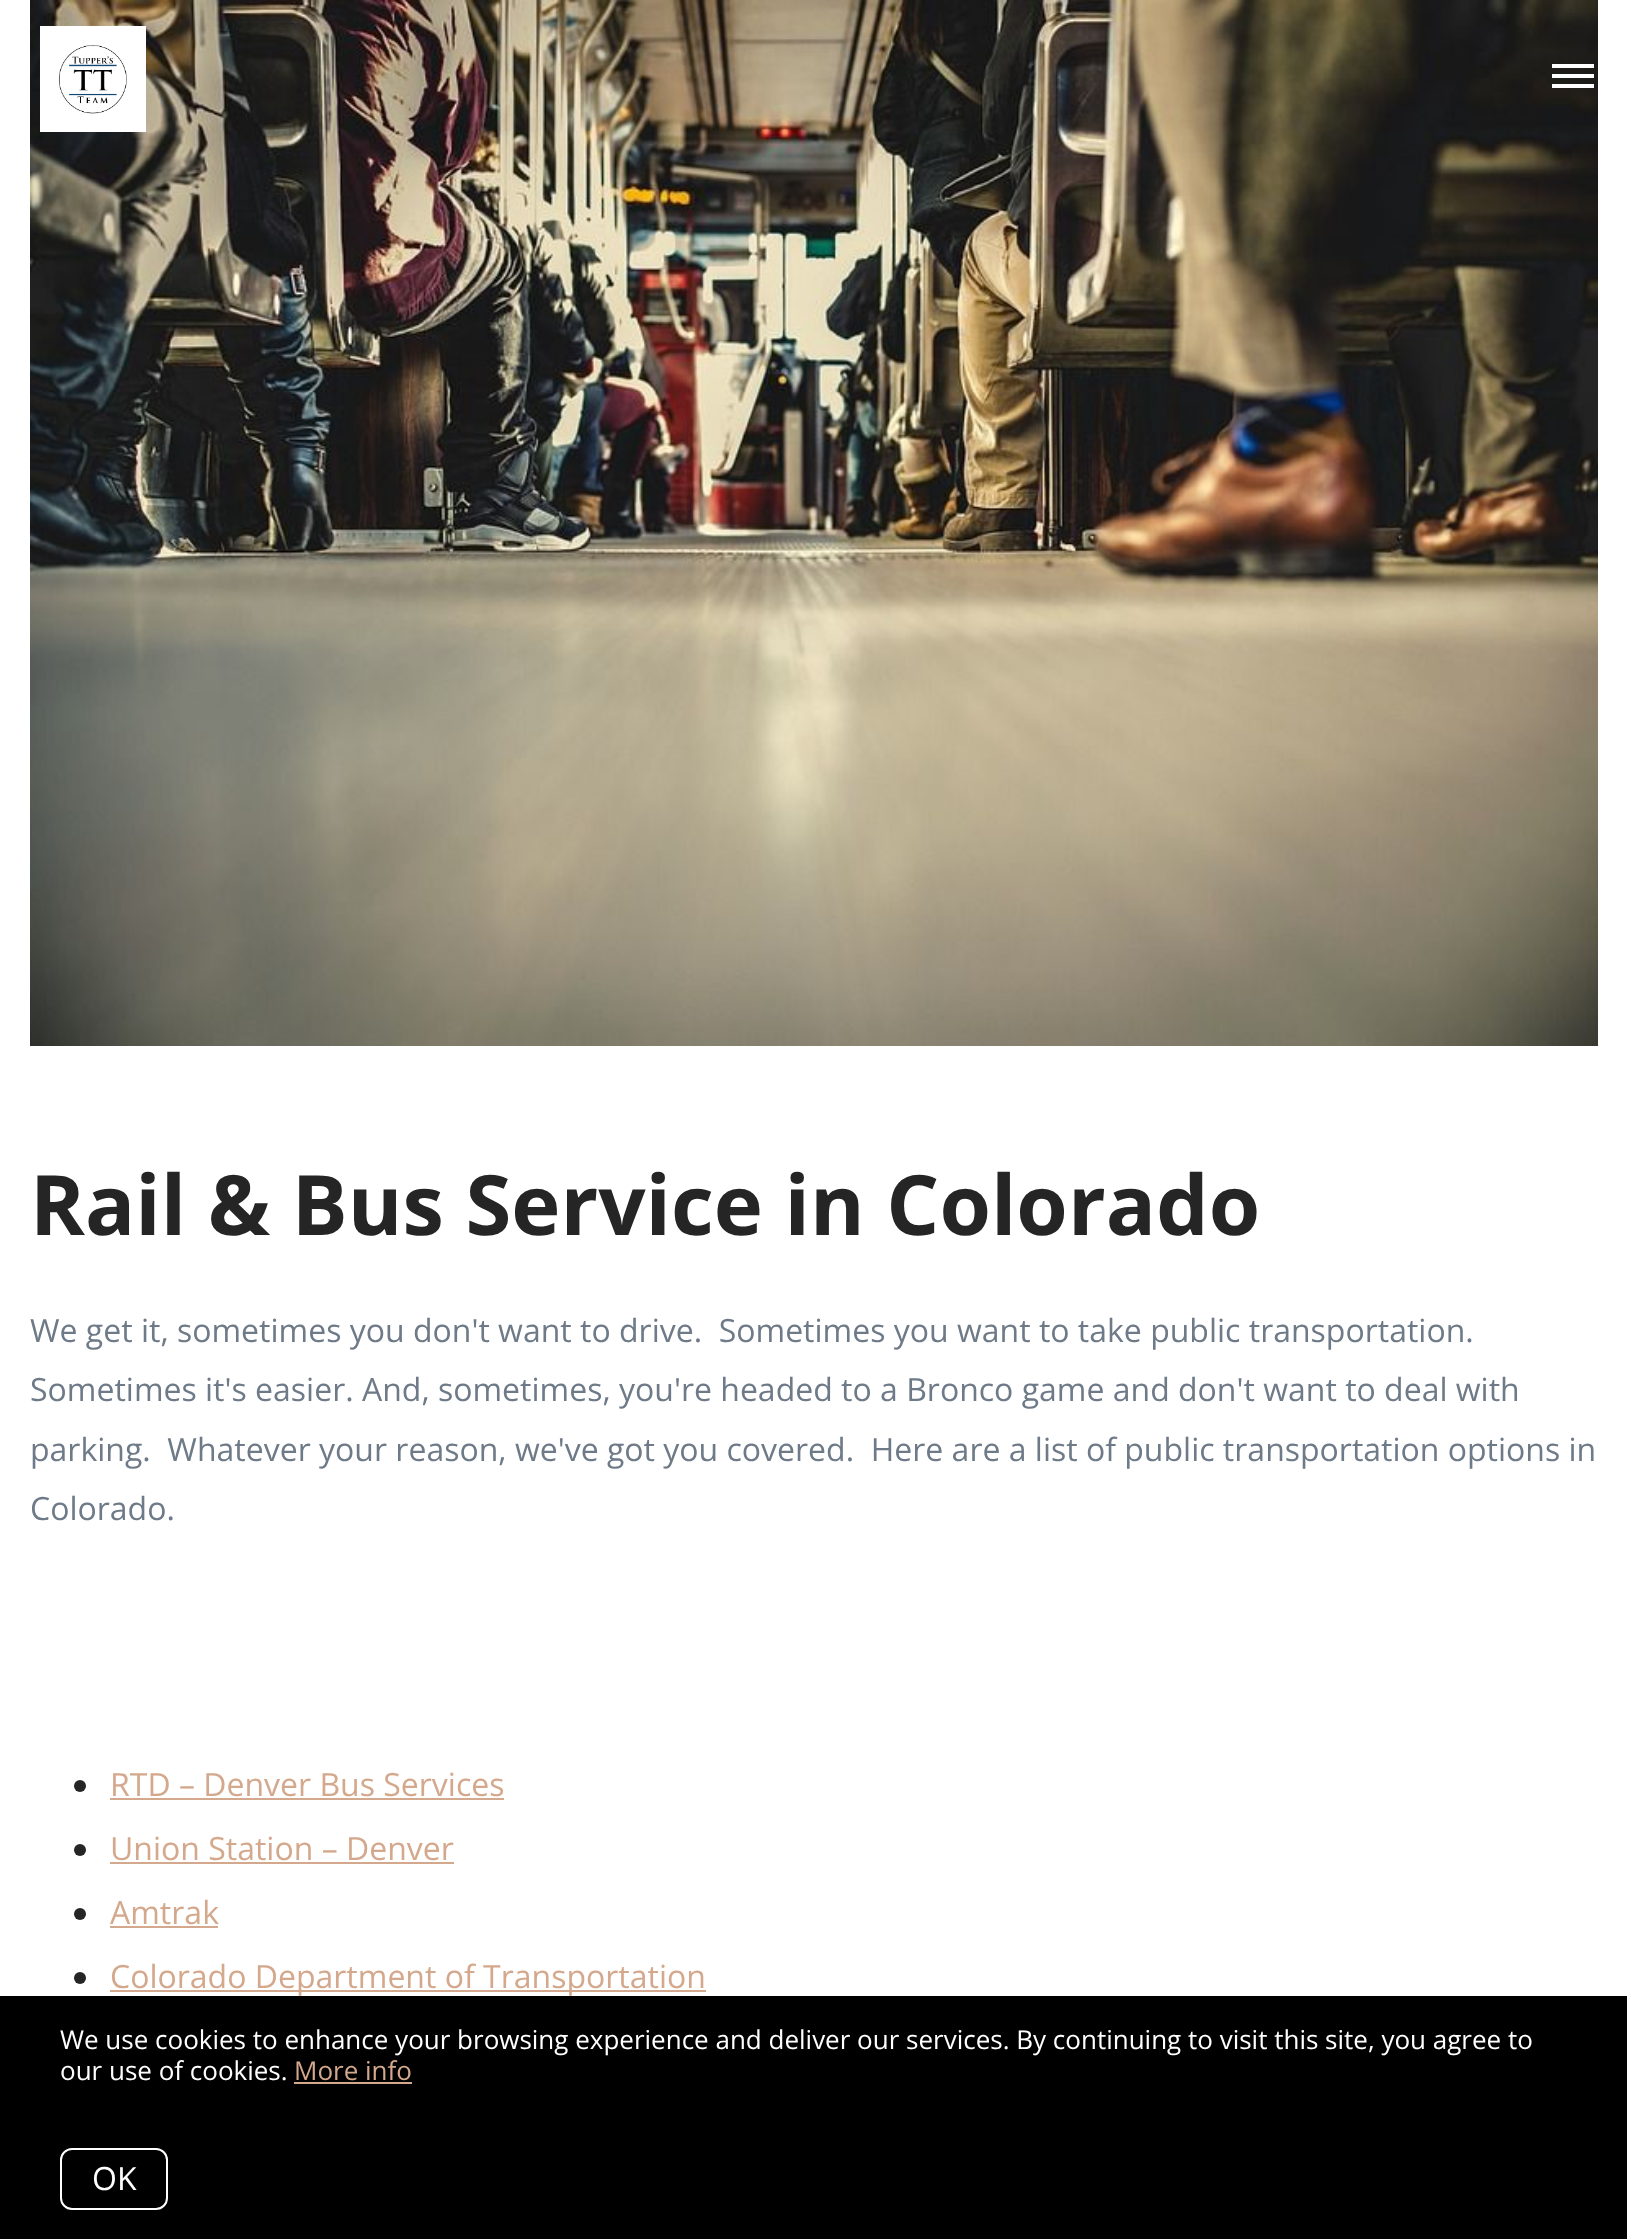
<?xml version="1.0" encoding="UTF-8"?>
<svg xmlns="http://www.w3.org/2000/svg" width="1627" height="2239">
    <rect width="100%" height="100%" fill="#FFFFFF"/>
    <image x="30" y="0" width="1568" height="1046" href="img_02.png"/>
    <image x="40" y="26" width="106" height="106" href="img_01.png"/>
    <rect x="1552" y="64" width="42" height="4" fill="#FFFFFF"/>
    <rect x="1552" y="74" width="42" height="4" fill="#FFFFFF"/>
    <rect x="1552" y="84" width="42" height="4" fill="#FFFFFF"/>
    <text x="30" y="1235" font-family="Open Sans" font-size="83.25" font-weight="700" fill="#252525">Rail &amp; Bus Service in Colorado</text>
    <text font-family="Open Sans" font-size="32" fill="#6E7A87" xml:space="preserve"><tspan x="30" y="1342">We get it, sometimes you don't want to drive.  Sometimes you want to take public transportation.</tspan><tspan x="30" y="1401">Sometimes it's easier. And, sometimes, you're headed to a Bronco game and don't want to deal with</tspan><tspan x="30" y="1461">parking.  Whatever your reason, we've got you covered.  Here are a list of public transportation options in</tspan><tspan x="30" y="1520">Colorado.</tspan></text>
    <circle cx="80" cy="1786" r="6" fill="#252525"/>
    <text x="110" y="1796" font-family="Open Sans" font-size="32" fill="#D4A88C">RTD – Denver Bus Services</text>
    <rect x="110" y="1798" width="394" height="2" fill="#D4A88C"/>
    <circle cx="80" cy="1850" r="6" fill="#252525"/>
    <text x="110" y="1860" font-family="Open Sans" font-size="32" fill="#D4A88C">Union Station – Denver</text>
    <rect x="110" y="1862" width="344" height="2" fill="#D4A88C"/>
    <circle cx="80" cy="1914" r="6" fill="#252525"/>
    <text x="110" y="1924" font-family="Open Sans" font-size="32" fill="#D4A88C">Amtrak</text>
    <rect x="110" y="1926" width="108" height="2" fill="#D4A88C"/>
    <circle cx="80" cy="1978" r="6" fill="#252525"/>
    <rect x="110" y="1990" width="596" height="2" fill="#D4A88C"/>
    <text x="110" y="1988" font-family="Open Sans" font-size="32" fill="#D4A88C">Colorado Department of Transportation</text>
    <rect x="0" y="1996" width="1627" height="243" fill="#000000"/>
    <text font-family="Open Sans" font-size="26" fill="#FFFFFF">
        <tspan x="60" y="2049">We use cookies to enhance your browsing experience and deliver our services. By continuing to visit this site, you agree to</tspan>
        <tspan x="60" y="2080">our use of cookies.</tspan>
    </text>
    <text x="294" y="2080" font-family="Open Sans" font-size="26" fill="#D4A88C">More info</text>
    <rect x="294" y="2082" width="118" height="2" fill="#D4A88C"/>
    <rect x="61" y="2149" width="106" height="60" rx="11" fill="none" stroke="#FFFFFF" stroke-width="2"/>
    <text x="92" y="2190" font-family="Open Sans" font-size="32" fill="#FFFFFF">OK</text>
</svg>
